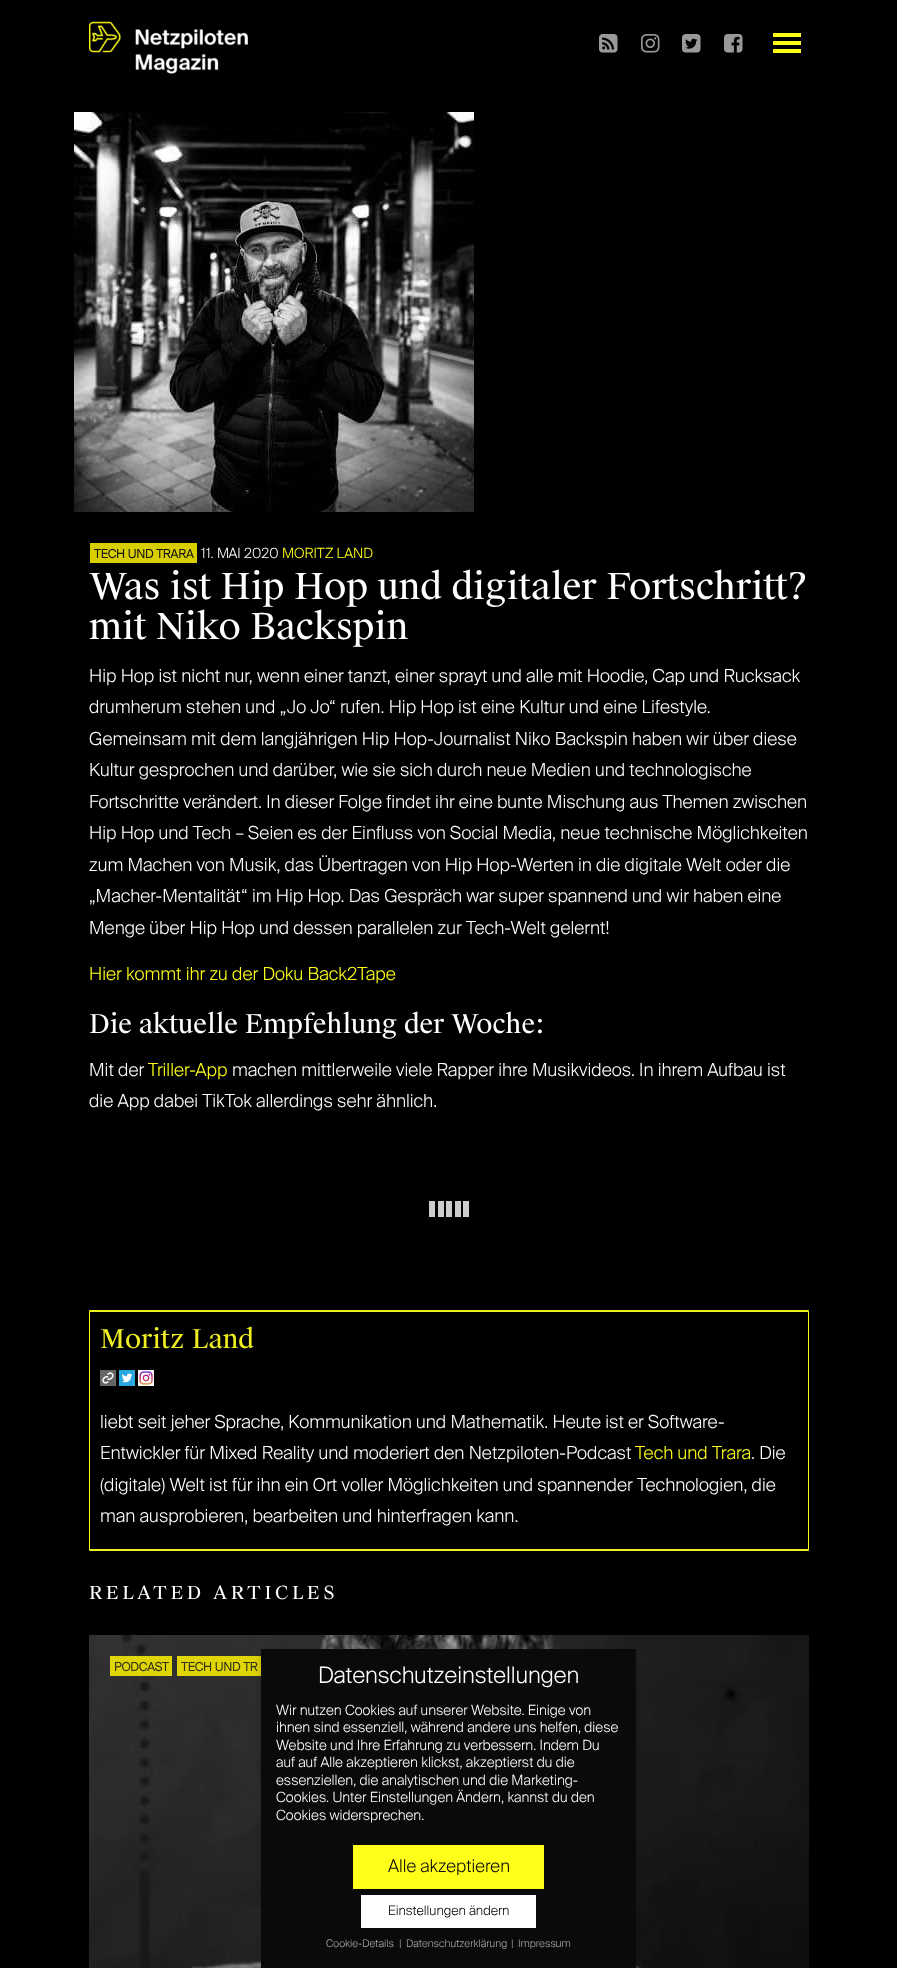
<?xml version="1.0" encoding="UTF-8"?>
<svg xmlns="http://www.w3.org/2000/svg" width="897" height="1968">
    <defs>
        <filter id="blur1" x="-50%" y="-200%" width="200%" height="500%"><feGaussianBlur stdDeviation="4"/></filter>
    </defs>
    <rect width="100%" height="100%" fill="#000000"/>
    <image x="89" y="21" width="159" height="53" href="img_01.png"/>
    <image x="599" y="34" width="19" height="19" href="img_02.png"/>
    <image x="641" y="34" width="19" height="19" href="img_03.png"/>
    <image x="682" y="34" width="19" height="19" href="img_04.png"/>
    <image x="724" y="34" width="19" height="19" href="img_05.png"/>
    <rect x="773" y="33" width="28" height="4" fill="#FFFF19"/>
    <rect x="773" y="41" width="28" height="4" fill="#FFFF19"/>
    <rect x="773" y="49" width="28" height="4" fill="#FFFF19"/>
    <image x="74" y="112" width="400" height="400" href="img_06.png"/>
    <rect x="90" y="543" width="107" height="20" fill="#D9CE00"/>
    <text x="94" y="558" font-family="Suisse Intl" font-size="12" font-weight="700" fill="#121212">TECH UND TRARA</text>
    <text x="201" y="558" font-family="Suisse Intl" font-size="14" font-weight="300" fill="#FFFFFF">11. MAI 2020</text>
    <text x="282" y="558" font-family="Suisse Intl" font-size="14" font-weight="300" fill="#FFFF19">MORITZ LAND</text>
    <text font-family="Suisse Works" font-size="36" fill="#FFFFFF">
        <tspan x="89" y="599">Was ist Hip Hop und digitaler Fortschritt?</tspan>
        <tspan x="89" y="639">mit Niko Backspin</tspan>
    </text>
    <text font-family="Suisse Intl" font-size="18" font-weight="300" fill="#FFFFFF">
        <tspan x="89" y="682">Hip Hop ist nicht nur, wenn einer tanzt, einer sprayt und alle mit Hoodie, Cap und Rucksack</tspan>
        <tspan x="89" y="713">drumherum stehen und „Jo Jo“ rufen. Hip Hop ist eine Kultur und eine Lifestyle.</tspan>
        <tspan x="89" y="745">Gemeinsam mit dem langjährigen Hip Hop-Journalist Niko Backspin haben wir über diese</tspan>
        <tspan x="89" y="776">Kultur gesprochen und darüber, wie sie sich durch neue Medien und technologische</tspan>
        <tspan x="89" y="808">Fortschritte verändert. In dieser Folge findet ihr eine bunte Mischung aus Themen zwischen</tspan>
        <tspan x="89" y="839">Hip Hop und Tech – Seien es der Einfluss von Social Media, neue technische Möglichkeiten</tspan>
        <tspan x="89" y="871">zum Machen von Musik, das Übertragen von Hip Hop-Werten in die digitale Welt oder die</tspan>
        <tspan x="89" y="902">„Macher-Mentalität“ im Hip Hop. Das Gespräch war super spannend und wir haben eine</tspan>
        <tspan x="89" y="934">Menge über Hip Hop und dessen parallelen zur Tech-Welt gelernt!</tspan>
    </text>
    <text x="89" y="980" font-family="Suisse Intl" font-size="18" font-weight="300" fill="#FFFF19">Hier kommt ihr zu der Doku Back2Tape</text>
    <text x="89" y="1033" font-family="Suisse Works" font-size="26" fill="#FFFFFF">Die aktuelle Empfehlung der Woche:</text>
    <text x="89" y="1076" font-family="Suisse Intl" font-size="18" font-weight="300" fill="#FFFFFF">Mit der</text>
    <text x="148" y="1076" font-family="Suisse Intl" font-size="18" font-weight="300" fill="#FFFF19">Triller-App</text>
    <text x="232" y="1076" font-family="Suisse Intl" font-size="18" font-weight="300" fill="#FFFFFF">machen mittlerweile viele Rapper ihre Musikvideos. In ihrem Aufbau ist</text>
    <text x="89" y="1107" font-family="Suisse Intl" font-size="18" font-weight="300" fill="#FFFFFF">die App dabei TikTok allerdings sehr ähnlich.</text>
    <image x="429" y="1201" width="40" height="16" href="img_07.png"/>
    <path d="M 89 1310 H 809 L 808 1312 H 90 Z" fill="#EEEE22"/>
    <path d="M 809 1310 V 1551 L 808 1549 V 1312 Z" fill="#FFFF19"/>
    <path d="M 809 1551 H 89 L 90 1549 H 808 Z" fill="#EEEE22"/>
    <path d="M 89 1551 V 1310 L 90 1312 V 1549 Z" fill="#FFFF19"/>
    <text x="100" y="1348" font-family="Suisse Works" font-size="26" fill="#EEEE22">Moritz Land</text>
    <image x="100" y="1370" width="16" height="16" href="img_08.png"/>
    <image x="119" y="1370" width="16" height="16" href="img_09.png"/>
    <image x="138" y="1370" width="16" height="16" href="img_10.png"/>
    <text font-family="Suisse Intl" font-size="18" font-weight="300" fill="#FFFFFF">
        <tspan x="100" y="1428">liebt seit jeher Sprache, Kommunikation und Mathematik. Heute ist er Software-</tspan>
        <tspan x="100" y="1459">Entwickler für Mixed Reality und moderiert den Netzpiloten-Podcast</tspan>
    </text>
    <text x="635" y="1459" font-family="Suisse Intl" font-size="18" font-weight="300" fill="#FFFF19">Tech und Trara</text>
    <text x="751" y="1459" font-family="Suisse Intl" font-size="18" font-weight="300" fill="#FFFFFF">. Die</text>
    <text font-family="Suisse Intl" font-size="18" font-weight="300" fill="#FFFFFF">
        <tspan x="100" y="1491">(digitale) Welt ist für ihn ein Ort voller Möglichkeiten und spannender Technologien, die</tspan>
        <tspan x="100" y="1522">man ausprobieren, bearbeiten und hinterfragen kann.</tspan>
    </text>
    <text x="89" y="1599" font-family="Suisse Works" font-size="18" letter-spacing="3.6" fill="#FFFFFF">RELATED ARTICLES</text>
    <image x="89" y="1635" width="720" height="333" href="img_11.png"/>
    <rect x="110" y="1656" width="62" height="20" fill="#FFF200" fill-opacity="0.85"/>
    <text x="114" y="1671" font-family="Suisse Intl" font-size="12" font-weight="700" fill="#333213">PODCAST</text>
    <rect x="177" y="1656" width="84" height="20" fill="#FFF200" fill-opacity="0.85"/>
    <text x="181" y="1671" font-family="Suisse Intl" font-size="12" font-weight="700" fill="#333213">TECH UND TR</text>
    <rect x="261" y="1653" width="375" height="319" fill="#000000" fill-opacity="0.2" filter="url(#blur1)"/>
    <rect x="261" y="1649" width="375" height="319" fill="#0A0A0A"/>
    <text x="318" y="1683" font-family="Suisse Intl" font-size="22.75" font-weight="300" fill="#FFFFFF">Datenschutzeinstellungen</text>
    <text font-family="Suisse Intl" font-size="14" font-weight="300" fill="#FFFFFF">
        <tspan x="276" y="1715">Wir nutzen Cookies auf unserer Website. Einige von</tspan>
        <tspan x="276" y="1732">ihnen sind essenziell, während andere uns helfen, diese</tspan>
        <tspan x="276" y="1750">Website und Ihre Erfahrung zu verbessern. Indem Du</tspan>
        <tspan x="276" y="1767">auf auf Alle akzeptieren klickst, akzeptierst du die</tspan>
        <tspan x="276" y="1785">essenziellen, die analytischen und die Marketing-</tspan>
        <tspan x="276" y="1802">Cookies. Unter Einstellungen Ändern, kannst du den</tspan>
        <tspan x="276" y="1820">Cookies widersprechen.</tspan>
    </text>
    <rect x="353" y="1845" width="191" height="44" fill="#FFFF19"/>
    <text x="388" y="1872" font-family="Suisse Intl" font-size="17.5" font-weight="300" fill="#0A0A0A">Alle akzeptieren</text>
    <rect x="361" y="1895" width="175" height="33" fill="#FFFFFF"/>
    <text x="388" y="1915" font-family="Suisse Intl" font-size="13.1" font-weight="300" fill="#000000">Einstellungen ändern</text>
    <text x="326" y="1947" font-family="Suisse Intl" font-size="10.5" font-weight="300" fill="#AAAAAA">Cookie-Details</text>
    <text x="399" y="1947" font-family="Suisse Intl" font-size="10.5" font-weight="300" fill="#AAAAAA">|</text>
    <text x="406" y="1947" font-family="Suisse Intl" font-size="10.5" font-weight="300" fill="#AAAAAA">Datenschutzerklärung</text>
    <text x="511" y="1947" font-family="Suisse Intl" font-size="10.5" font-weight="300" fill="#AAAAAA">|</text>
    <text x="518" y="1947" font-family="Suisse Intl" font-size="10.5" font-weight="300" fill="#AAAAAA">Impressum</text>
</svg>
